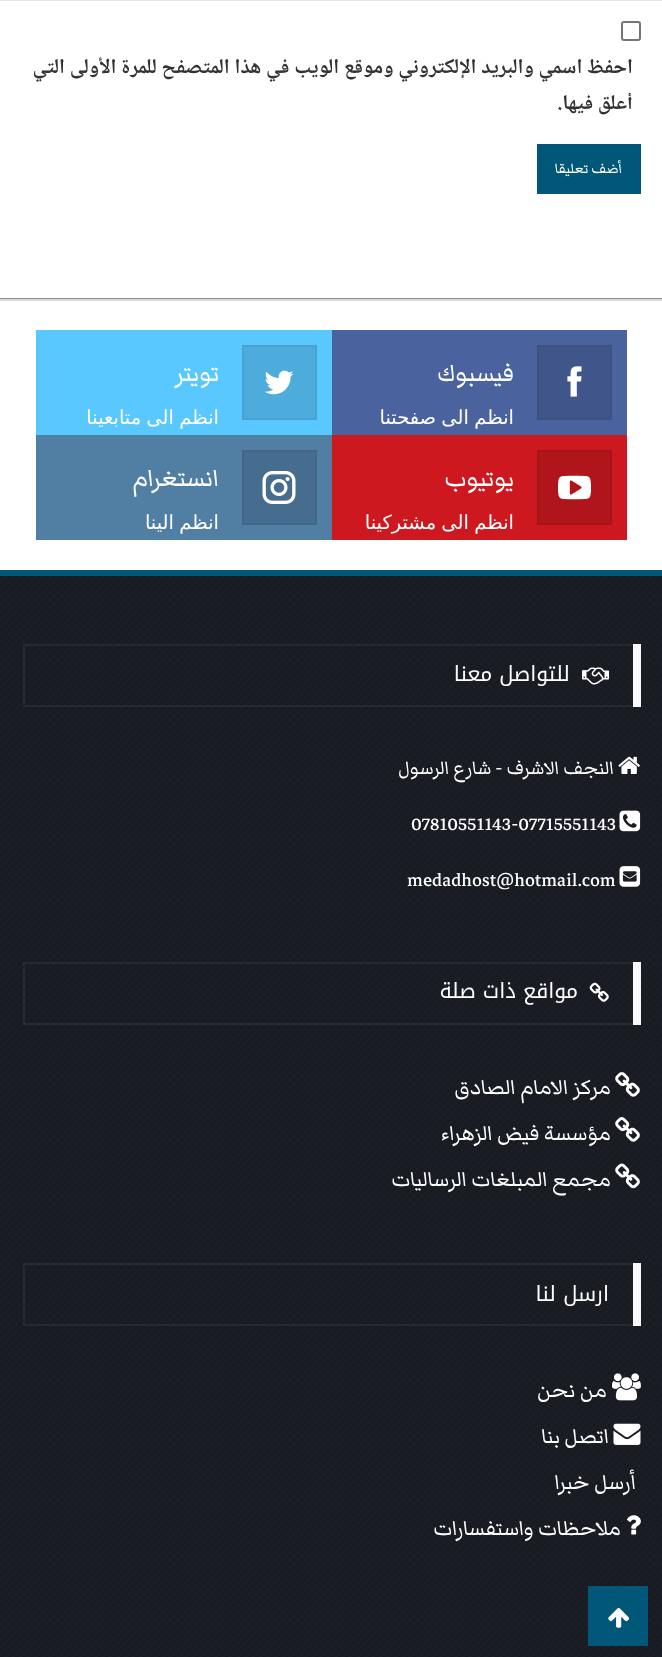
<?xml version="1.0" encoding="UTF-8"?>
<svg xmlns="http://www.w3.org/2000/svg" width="662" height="1657">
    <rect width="100%" height="100%" fill="#FFFFFF"/>
    <rect x="0" y="0" width="662" height="1" fill="#E5E5E5"/>
    <rect x="622" y="22" width="18" height="18" rx="2" fill="none" stroke="#767676" stroke-width="2"/>
    <text font-family="Noto Naskh Arabic UI" font-size="21" font-weight="700" direction="rtl" fill="#333333">
        <tspan x="633" y="76">احفظ اسمي والبريد الإلكتروني وموقع الويب في هذا المتصفح للمرة الأولى التي</tspan>
        <tspan x="633" y="112">أعلق فيها.</tspan>
    </text>
    <rect x="537" y="144" width="104" height="50" fill="#005777"/>
    <text x="622" y="173" font-family="Markazi Text" font-size="18" direction="rtl" fill="#FFFFFF">أضف تعليقا</text>
    <image x="0" y="298" width="662" height="1359" href="img_01.png"/>
    <rect x="0" y="301" width="662" height="269" fill="#FFFFFF"/>
    <rect x="0" y="299" width="662" height="2" fill="#D9D9D9"/>
    <rect x="332" y="330" width="295" height="105" fill="#4A639F"/>
    <rect x="538" y="346" width="73" height="73" fill="#405589" stroke="#3D5182" stroke-width="2"/>
    <image x="567" y="366" width="15" height="31" href="img_02.png"/>
    <text x="514" y="381" font-family="Markazi Text" font-size="31.5" direction="rtl" fill="#FFFFFF">فيسبوك</text>
    <text x="514" y="424" word-spacing="-1" font-family="DejaVu Sans" font-size="19.5" direction="rtl" fill="#FFFFFF">انظم الى صفحتنا</text>
    <rect x="36" y="330" width="296" height="105" fill="#59C8FF"/>
    <rect x="243" y="346" width="73" height="73" fill="#4DACDB" stroke="#49A3D0" stroke-width="2"/>
    <image x="264" y="370" width="30" height="25" href="img_03.png"/>
    <text x="219" y="381" font-family="Markazi Text" font-size="31.5" direction="rtl" fill="#FFFFFF">تويتر</text>
    <text x="219" y="424" word-spacing="-1" font-family="DejaVu Sans" font-size="19.5" direction="rtl" fill="#FFFFFF">انظم الى متابعينا</text>
    <rect x="332" y="435" width="295" height="105" fill="#CC181E"/>
    <rect x="538" y="451" width="73" height="73" fill="#AF151A" stroke="#A61419" stroke-width="2"/>
    <image x="558" y="475" width="33" height="25" href="img_04.png"/>
    <text x="514" y="486" font-family="Markazi Text" font-size="31.5" direction="rtl" fill="#FFFFFF">يوتيوب</text>
    <text x="514" y="529" word-spacing="-1" font-family="DejaVu Sans" font-size="19.5" direction="rtl" fill="#FFFFFF">انظم الى مشتركينا</text>
    <rect x="36" y="435" width="296" height="105" fill="#517FA4"/>
    <rect x="243" y="451" width="73" height="73" fill="#466D8D" stroke="#436886" stroke-width="2"/>
    <image x="262" y="471" width="34" height="33" href="img_05.png"/>
    <text x="219" y="486" font-family="Markazi Text" font-size="31.5" direction="rtl" fill="#FFFFFF">انستغرام</text>
    <text x="219" y="529" word-spacing="-1" font-family="DejaVu Sans" font-size="19.5" direction="rtl" fill="#FFFFFF">انظم الينا</text>
    <rect x="0" y="570" width="662" height="6" fill="#005777"/>
    <rect x="24" y="645" width="616" height="61" fill="none" stroke="#FFFFFF" stroke-opacity="0.06" stroke-width="2"/>
    <rect x="633" y="644" width="8" height="63" fill="#F9F9F9"/>
    <image x="582" y="667" width="27" height="18" href="img_06.png"/>
    <text x="570" y="681" font-family="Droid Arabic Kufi" font-size="21" direction="rtl" fill="#FFFFFF">للتواصل معنا</text>
    <image x="618" y="756" width="22" height="18" href="img_07.png"/>
    <text x="614" y="774" font-family="Markazi Text" font-size="24" direction="rtl" fill="#FFFFFF">النجف الاشرف - شارع الرسول</text>
    <image x="619" y="810" width="22" height="22" href="img_08.png"/>
    <text x="411" y="830" font-family="Markazi Text" font-size="24" fill="#FFFFFF">07810551143-07715551143</text>
    <image x="619" y="866" width="22" height="21" href="img_09.png"/>
    <text x="407" y="886" font-family="Markazi Text" font-size="24" fill="#FFFFFF">medadhost@hotmail.com</text>
    <rect x="24" y="963" width="616" height="61" fill="none" stroke="#FFFFFF" stroke-opacity="0.06" stroke-width="2"/>
    <rect x="633" y="962" width="8" height="63" fill="#F9F9F9"/>
    <image x="589" y="982" width="20" height="20" href="img_10.png"/>
    <text x="578" y="998" font-family="Droid Arabic Kufi" font-size="21" direction="rtl" fill="#FFFFFF">مواقع ذات صلة</text>
    <image x="615" y="1072" width="25" height="25" href="img_11.png"/>
    <text x="611" y="1094" font-family="Markazi Text" font-size="27" direction="rtl" fill="#FFFFFF">مركز الامام الصادق</text>
    <image x="615" y="1117" width="25" height="25" href="img_11.png"/>
    <text x="611" y="1140" font-family="Markazi Text" font-size="27" direction="rtl" fill="#FFFFFF">مؤسسة فيض الزهراء</text>
    <image x="615" y="1163" width="25" height="26" href="img_12.png"/>
    <text x="611" y="1186" font-family="Markazi Text" font-size="27" direction="rtl" fill="#FFFFFF">مجمع المبلغات الرساليات</text>
    <rect x="24" y="1264" width="616" height="61" fill="none" stroke="#FFFFFF" stroke-opacity="0.06" stroke-width="2"/>
    <rect x="633" y="1263" width="8" height="63" fill="#F9F9F9"/>
    <text x="609" y="1301" font-family="Droid Arabic Kufi" font-size="21" direction="rtl" fill="#FFFFFF">ارسل لنا</text>
    <image x="612" y="1373" width="29" height="28" href="img_13.png"/>
    <text x="607" y="1397" font-family="Markazi Text" font-size="27" direction="rtl" fill="#FFFFFF">من نحن</text>
    <image x="613" y="1423" width="28" height="22" href="img_14.png"/>
    <text x="609" y="1443" font-family="Markazi Text" font-size="27" direction="rtl" fill="#FFFFFF">اتصل بنا</text>
    <text x="636" y="1489" font-family="Markazi Text" font-size="27" direction="rtl" fill="#FFFFFF">أرسل خبرا</text>
    <image x="627" y="1515" width="14" height="20" href="img_15.png"/>
    <text x="621" y="1535" font-family="Markazi Text" font-size="27" direction="rtl" fill="#FFFFFF">ملاحظات واستفسارات</text>
    <rect x="588" y="1586" width="60" height="60" fill="#005777"/>
    <image x="608" y="1608" width="22" height="20" href="img_16.png"/>
</svg>
